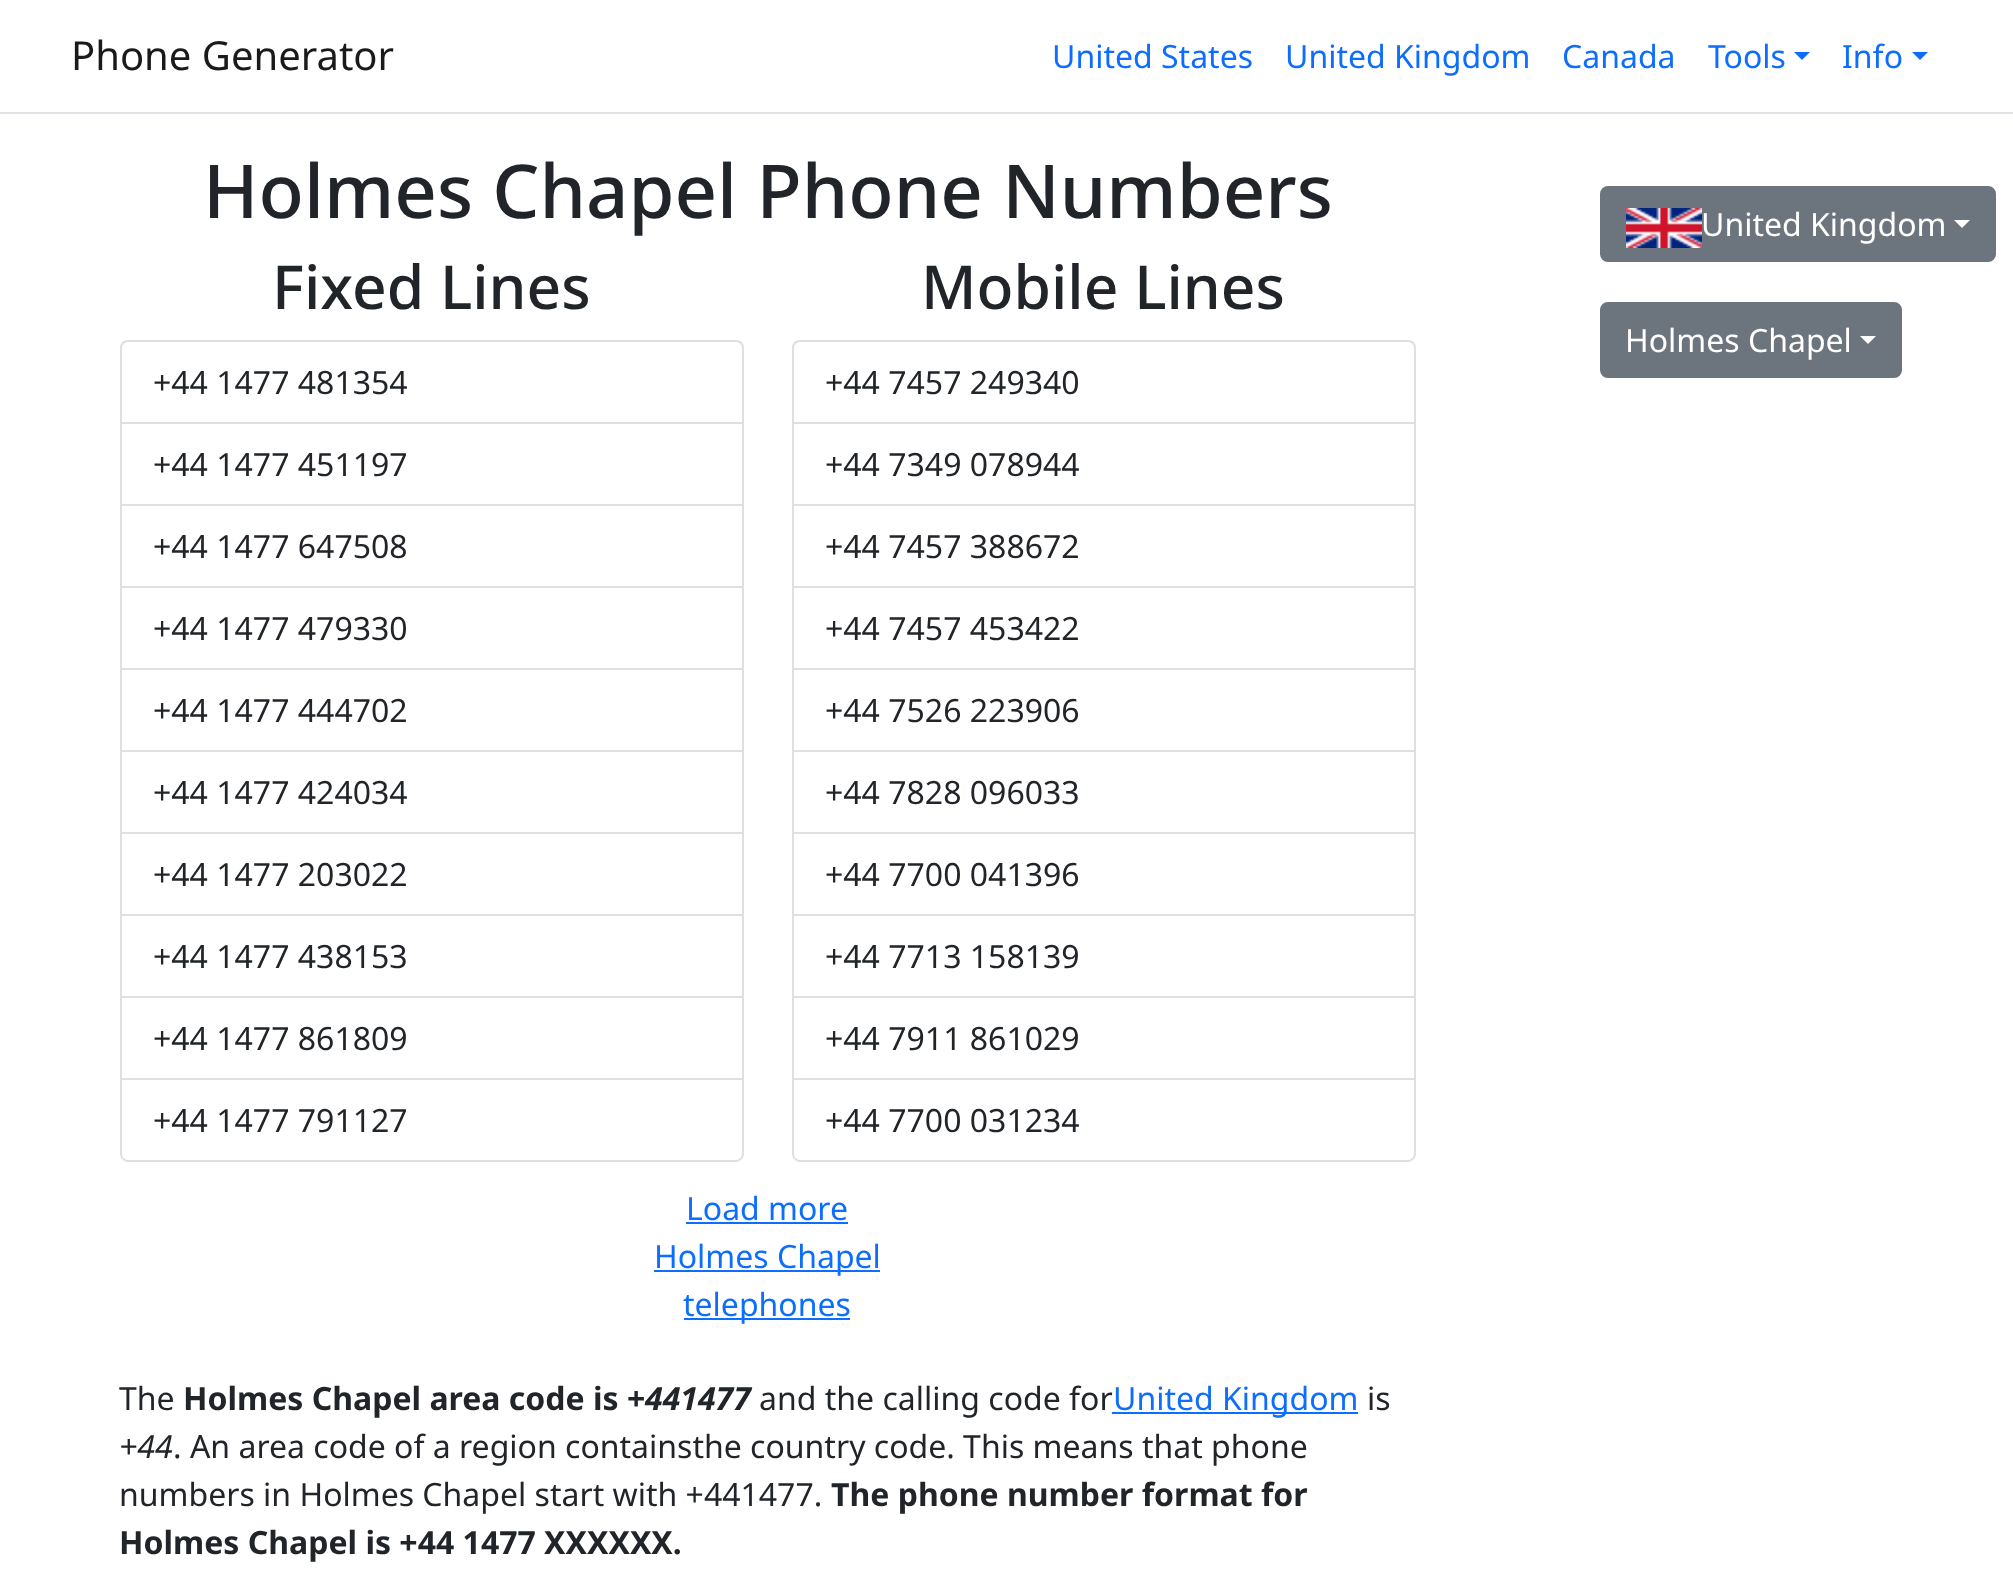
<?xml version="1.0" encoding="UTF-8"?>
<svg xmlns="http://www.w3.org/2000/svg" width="2013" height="1578">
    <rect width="100%" height="100%" fill="#FFFFFF"/>
    <rect x="0" y="112" width="2013" height="2" fill="#DEE2E6"/>
    <text x="71" y="70" font-family="Noto Sans" font-size="40" fill="#1A1A1A">Phone Generator</text>
    <text x="1052" y="68" font-family="Noto Sans" font-size="32" fill="#0D6EFD">United States</text>
    <text x="1285" y="68" font-family="Noto Sans" font-size="32" fill="#0D6EFD">United Kingdom</text>
    <text x="1562" y="68" font-family="Noto Sans" font-size="32" fill="#0D6EFD">Canada</text>
    <text x="1708" y="68" font-family="Noto Sans" font-size="32" fill="#0D6EFD">Tools</text>
    <path d="M 1794 52 H 1810 L 1802 60 Z" fill="#0D6EFD"/>
    <text x="1842" y="68" font-family="Noto Sans" font-size="32" fill="#0D6EFD">Info</text>
    <path d="M 1912 52 H 1928 L 1920 60 Z" fill="#0D6EFD"/>
    <text x="203" y="218" font-family="Noto Sans" font-size="74.25" font-weight="500" fill="#212529">Holmes Chapel Phone Numbers</text>
    <text x="272" y="309" font-family="Noto Sans" font-size="60.5" font-weight="500" fill="#212529">Fixed Lines</text>
    <path d="M 128 341 H 736 C 740 341 743 344 743 348 V 423 H 121 V 348 C 121 344 124 341 128 341 Z" fill="none" stroke="#DFDFDF" stroke-width="2"/>
    <text x="153" y="394" font-family="Noto Sans" font-size="32" fill="#212529">+44 1477 481354</text>
    <path d="M 744 424 V 506 L 742 504 V 424 Z" fill="#DFDFDF"/>
    <path d="M 744 506 H 120 L 122 504 H 742 Z" fill="#000000" fill-opacity="0.12"/>
    <path d="M 120 506 V 424 H 122 V 504 Z" fill="#000000" fill-opacity="0.12"/>
    <text x="153" y="476" font-family="Noto Sans" font-size="32" fill="#212529">+44 1477 451197</text>
    <path d="M 744 506 V 588 L 742 586 V 506 Z" fill="#DFDFDF"/>
    <path d="M 744 588 H 120 L 122 586 H 742 Z" fill="#000000" fill-opacity="0.12"/>
    <path d="M 120 588 V 506 H 122 V 586 Z" fill="#000000" fill-opacity="0.12"/>
    <text x="153" y="558" font-family="Noto Sans" font-size="32" fill="#212529">+44 1477 647508</text>
    <path d="M 744 588 V 670 L 742 668 V 588 Z" fill="#DFDFDF"/>
    <path d="M 744 670 H 120 L 122 668 H 742 Z" fill="#000000" fill-opacity="0.12"/>
    <path d="M 120 670 V 588 H 122 V 668 Z" fill="#000000" fill-opacity="0.12"/>
    <text x="153" y="640" font-family="Noto Sans" font-size="32" fill="#212529">+44 1477 479330</text>
    <path d="M 744 670 V 752 L 742 750 V 670 Z" fill="#DFDFDF"/>
    <path d="M 744 752 H 120 L 122 750 H 742 Z" fill="#000000" fill-opacity="0.12"/>
    <path d="M 120 752 V 670 H 122 V 750 Z" fill="#000000" fill-opacity="0.12"/>
    <text x="153" y="722" font-family="Noto Sans" font-size="32" fill="#212529">+44 1477 444702</text>
    <path d="M 744 752 V 834 L 742 832 V 752 Z" fill="#DFDFDF"/>
    <path d="M 744 834 H 120 L 122 832 H 742 Z" fill="#000000" fill-opacity="0.12"/>
    <path d="M 120 834 V 752 H 122 V 832 Z" fill="#000000" fill-opacity="0.12"/>
    <text x="153" y="804" font-family="Noto Sans" font-size="32" fill="#212529">+44 1477 424034</text>
    <path d="M 744 834 V 916 L 742 914 V 834 Z" fill="#DFDFDF"/>
    <path d="M 744 916 H 120 L 122 914 H 742 Z" fill="#000000" fill-opacity="0.12"/>
    <path d="M 120 916 V 834 H 122 V 914 Z" fill="#000000" fill-opacity="0.12"/>
    <text x="153" y="886" font-family="Noto Sans" font-size="32" fill="#212529">+44 1477 203022</text>
    <path d="M 744 916 V 998 L 742 996 V 916 Z" fill="#DFDFDF"/>
    <path d="M 744 998 H 120 L 122 996 H 742 Z" fill="#000000" fill-opacity="0.12"/>
    <path d="M 120 998 V 916 H 122 V 996 Z" fill="#000000" fill-opacity="0.12"/>
    <text x="153" y="968" font-family="Noto Sans" font-size="32" fill="#212529">+44 1477 438153</text>
    <path d="M 744 998 V 1080 L 742 1078 V 998 Z" fill="#DFDFDF"/>
    <path d="M 744 1080 H 120 L 122 1078 H 742 Z" fill="#000000" fill-opacity="0.12"/>
    <path d="M 120 1080 V 998 H 122 V 1078 Z" fill="#000000" fill-opacity="0.12"/>
    <text x="153" y="1050" font-family="Noto Sans" font-size="32" fill="#212529">+44 1477 861809</text>
    <path d="M 120 1080 H 744 V 1154 C 744 1158 740 1162 736 1162 H 128 C 124 1162 120 1158 120 1154 Z M 122 1080 H 742 V 1154 C 742 1157 739 1160 736 1160 H 128 C 125 1160 122 1157 122 1154 Z" fill="#DFDFDF" fill-rule="evenodd"/>
    <text x="153" y="1132" font-family="Noto Sans" font-size="32" fill="#212529">+44 1477 791127</text>
    <text x="921" y="309" font-family="Noto Sans" font-size="60.5" font-weight="500" fill="#212529">Mobile Lines</text>
    <path d="M 800 341 H 1408 C 1412 341 1415 344 1415 348 V 423 H 793 V 348 C 793 344 796 341 800 341 Z" fill="none" stroke="#DFDFDF" stroke-width="2"/>
    <text x="825" y="394" font-family="Noto Sans" font-size="32" fill="#212529">+44 7457 249340</text>
    <path d="M 1416 424 V 506 L 1414 504 V 424 Z" fill="#DFDFDF"/>
    <path d="M 1416 506 H 792 L 794 504 H 1414 Z" fill="#000000" fill-opacity="0.12"/>
    <path d="M 792 506 V 424 H 794 V 504 Z" fill="#000000" fill-opacity="0.12"/>
    <text x="825" y="476" font-family="Noto Sans" font-size="32" fill="#212529">+44 7349 078944</text>
    <path d="M 1416 506 V 588 L 1414 586 V 506 Z" fill="#DFDFDF"/>
    <path d="M 1416 588 H 792 L 794 586 H 1414 Z" fill="#000000" fill-opacity="0.12"/>
    <path d="M 792 588 V 506 H 794 V 586 Z" fill="#000000" fill-opacity="0.12"/>
    <text x="825" y="558" font-family="Noto Sans" font-size="32" fill="#212529">+44 7457 388672</text>
    <path d="M 1416 588 V 670 L 1414 668 V 588 Z" fill="#DFDFDF"/>
    <path d="M 1416 670 H 792 L 794 668 H 1414 Z" fill="#000000" fill-opacity="0.12"/>
    <path d="M 792 670 V 588 H 794 V 668 Z" fill="#000000" fill-opacity="0.12"/>
    <text x="825" y="640" font-family="Noto Sans" font-size="32" fill="#212529">+44 7457 453422</text>
    <path d="M 1416 670 V 752 L 1414 750 V 670 Z" fill="#DFDFDF"/>
    <path d="M 1416 752 H 792 L 794 750 H 1414 Z" fill="#000000" fill-opacity="0.12"/>
    <path d="M 792 752 V 670 H 794 V 750 Z" fill="#000000" fill-opacity="0.12"/>
    <text x="825" y="722" font-family="Noto Sans" font-size="32" fill="#212529">+44 7526 223906</text>
    <path d="M 1416 752 V 834 L 1414 832 V 752 Z" fill="#DFDFDF"/>
    <path d="M 1416 834 H 792 L 794 832 H 1414 Z" fill="#000000" fill-opacity="0.12"/>
    <path d="M 792 834 V 752 H 794 V 832 Z" fill="#000000" fill-opacity="0.12"/>
    <text x="825" y="804" font-family="Noto Sans" font-size="32" fill="#212529">+44 7828 096033</text>
    <path d="M 1416 834 V 916 L 1414 914 V 834 Z" fill="#DFDFDF"/>
    <path d="M 1416 916 H 792 L 794 914 H 1414 Z" fill="#000000" fill-opacity="0.12"/>
    <path d="M 792 916 V 834 H 794 V 914 Z" fill="#000000" fill-opacity="0.12"/>
    <text x="825" y="886" font-family="Noto Sans" font-size="32" fill="#212529">+44 7700 041396</text>
    <path d="M 1416 916 V 998 L 1414 996 V 916 Z" fill="#DFDFDF"/>
    <path d="M 1416 998 H 792 L 794 996 H 1414 Z" fill="#000000" fill-opacity="0.12"/>
    <path d="M 792 998 V 916 H 794 V 996 Z" fill="#000000" fill-opacity="0.12"/>
    <text x="825" y="968" font-family="Noto Sans" font-size="32" fill="#212529">+44 7713 158139</text>
    <path d="M 1416 998 V 1080 L 1414 1078 V 998 Z" fill="#DFDFDF"/>
    <path d="M 1416 1080 H 792 L 794 1078 H 1414 Z" fill="#000000" fill-opacity="0.12"/>
    <path d="M 792 1080 V 998 H 794 V 1078 Z" fill="#000000" fill-opacity="0.12"/>
    <text x="825" y="1050" font-family="Noto Sans" font-size="32" fill="#212529">+44 7911 861029</text>
    <path d="M 792 1080 H 1416 V 1154 C 1416 1158 1412 1162 1408 1162 H 800 C 796 1162 792 1158 792 1154 Z M 794 1080 H 1414 V 1154 C 1414 1157 1411 1160 1408 1160 H 800 C 797 1160 794 1157 794 1154 Z" fill="#DFDFDF" fill-rule="evenodd"/>
    <text x="825" y="1132" font-family="Noto Sans" font-size="32" fill="#212529">+44 7700 031234</text>
    <text x="686" y="1220" font-family="Noto Sans" font-size="32" fill="#0D6EFD">Load more</text>
    <rect x="686" y="1222" width="162" height="2" fill="#0D6EFD"/>
    <rect x="654" y="1270" width="226" height="2" fill="#0D6EFD"/>
    <text x="654" y="1268" font-family="Noto Sans" font-size="32" fill="#0D6EFD">Holmes Chapel</text>
    <rect x="684" y="1318" width="166" height="2" fill="#0D6EFD"/>
    <text x="683" y="1316" font-family="Noto Sans" font-size="32" fill="#0D6EFD">telephones</text>
    <text x="119" y="1410" font-family="Noto Sans" font-size="32" fill="#212529">The</text>
    <text x="183" y="1410" font-family="Noto Sans" font-size="32" font-weight="700" fill="#212529">Holmes Chapel area code is +</text>
    <text x="645" y="1410" font-family="Noto Sans" font-size="32" font-weight="700" font-style="italic" fill="#212529">441477</text>
    <text x="759" y="1410" font-family="Noto Sans" font-size="32" fill="#212529">and the calling code for</text>
    <rect x="1112" y="1412" width="246" height="2" fill="#0D6EFD"/>
    <text x="1113" y="1410" font-family="Noto Sans" font-size="32" fill="#0D6EFD">United Kingdom</text>
    <text x="1367" y="1410" font-family="Noto Sans" font-size="32" fill="#212529">is</text>
    <text x="119" y="1458" font-family="Noto Sans" font-size="32" font-style="italic" fill="#212529">+44</text>
    <text x="173" y="1458" font-family="Noto Sans" font-size="32" fill="#212529">. An area code of a region containsthe country code. This means that phone</text>
    <text x="119" y="1506" font-family="Noto Sans" font-size="32" fill="#212529">numbers in Holmes Chapel start with +441477.</text>
    <text x="831" y="1506" font-family="Noto Sans" font-size="32" font-weight="700" fill="#212529">The phone number format for</text>
    <text x="119" y="1554" font-family="Noto Sans" font-size="32" font-weight="700" fill="#212529">Holmes Chapel is +44 1477 XXXXXX.</text>
    <rect x="1601" y="187" width="394" height="74" rx="7" fill="#6C757D" stroke="#6C757D" stroke-width="2"/>
    <image x="1626" y="208" width="76" height="40" href="img_01.png"/>
    <text x="1701" y="236" font-family="Noto Sans" font-size="32" fill="#FFFFFF">United Kingdom</text>
    <path d="M 1954 220 H 1970 L 1962 228 Z" fill="#FFFFFF"/>
    <rect x="1601" y="303" width="300" height="74" rx="7" fill="#6C757D" stroke="#6C757D" stroke-width="2"/>
    <text x="1625" y="352" font-family="Noto Sans" font-size="32" fill="#FFFFFF">Holmes Chapel</text>
    <path d="M 1860 336 H 1876 L 1868 344 Z" fill="#FFFFFF"/>
</svg>
